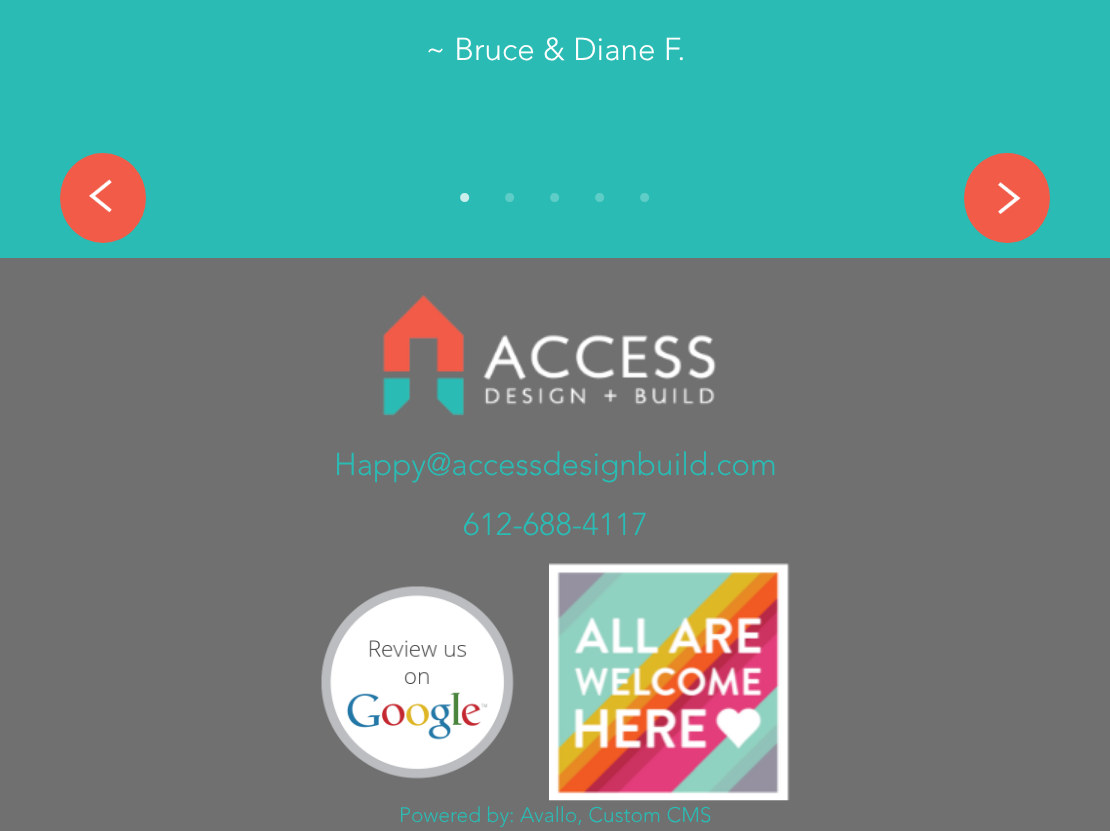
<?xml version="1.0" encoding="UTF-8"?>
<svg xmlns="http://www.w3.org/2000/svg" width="1110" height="831">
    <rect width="100%" height="100%" fill="#707070"/>
    <rect x="0" y="0" width="1110" height="258" fill="#2ABCB4"/>
    <text x="425" y="60" font-family="'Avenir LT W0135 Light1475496'" font-size="31.5" font-weight="300" fill="#FFFFFF">~ Bruce &amp; Diane F.</text>
    <ellipse cx="103" cy="198" rx="43" ry="45" fill="#F15B48"/>
    <image x="89" y="179" width="23" height="34" href="img_01.png"/>
    <text x="458" y="210" font-family="Liberation Serif" font-size="38" fill="#CAEEEC">•</text>
    <text x="503" y="210" font-family="Liberation Serif" font-size="38" fill="#5FCDC7">•</text>
    <text x="548" y="210" font-family="Liberation Serif" font-size="38" fill="#5FCDC7">•</text>
    <text x="593" y="210" font-family="Liberation Serif" font-size="38" fill="#5FCDC7">•</text>
    <text x="638" y="210" font-family="Liberation Serif" font-size="38" fill="#5FCDC7">•</text>
    <ellipse cx="1007" cy="198" rx="43" ry="45" fill="#F15B48"/>
    <image x="998" y="182" width="23" height="32" href="img_02.png"/>
    <image x="382" y="295" width="334" height="121" href="img_03.png"/>
    <text x="334" y="475" font-family="'Avenir LT W0135 Light1475496'" font-size="31.5" font-weight="300" fill="#2ABCB4">Happy@accessdesignbuild.com</text>
    <text x="463" y="535" font-family="'Avenir LT W0135 Light1475496'" font-size="31.5" font-weight="300" fill="#2ABCB4">612-688-4117</text>
    <image x="321" y="586" width="193" height="193" href="img_04.png"/>
    <image x="549" y="563" width="241" height="238" href="img_05.png"/>
    <text x="399" y="822" font-family="'Avenir LT W0135 Light1475496'" font-size="21" font-weight="300" fill="#2ABCB4">Powered by: Avallo, Custom CMS</text>
</svg>
